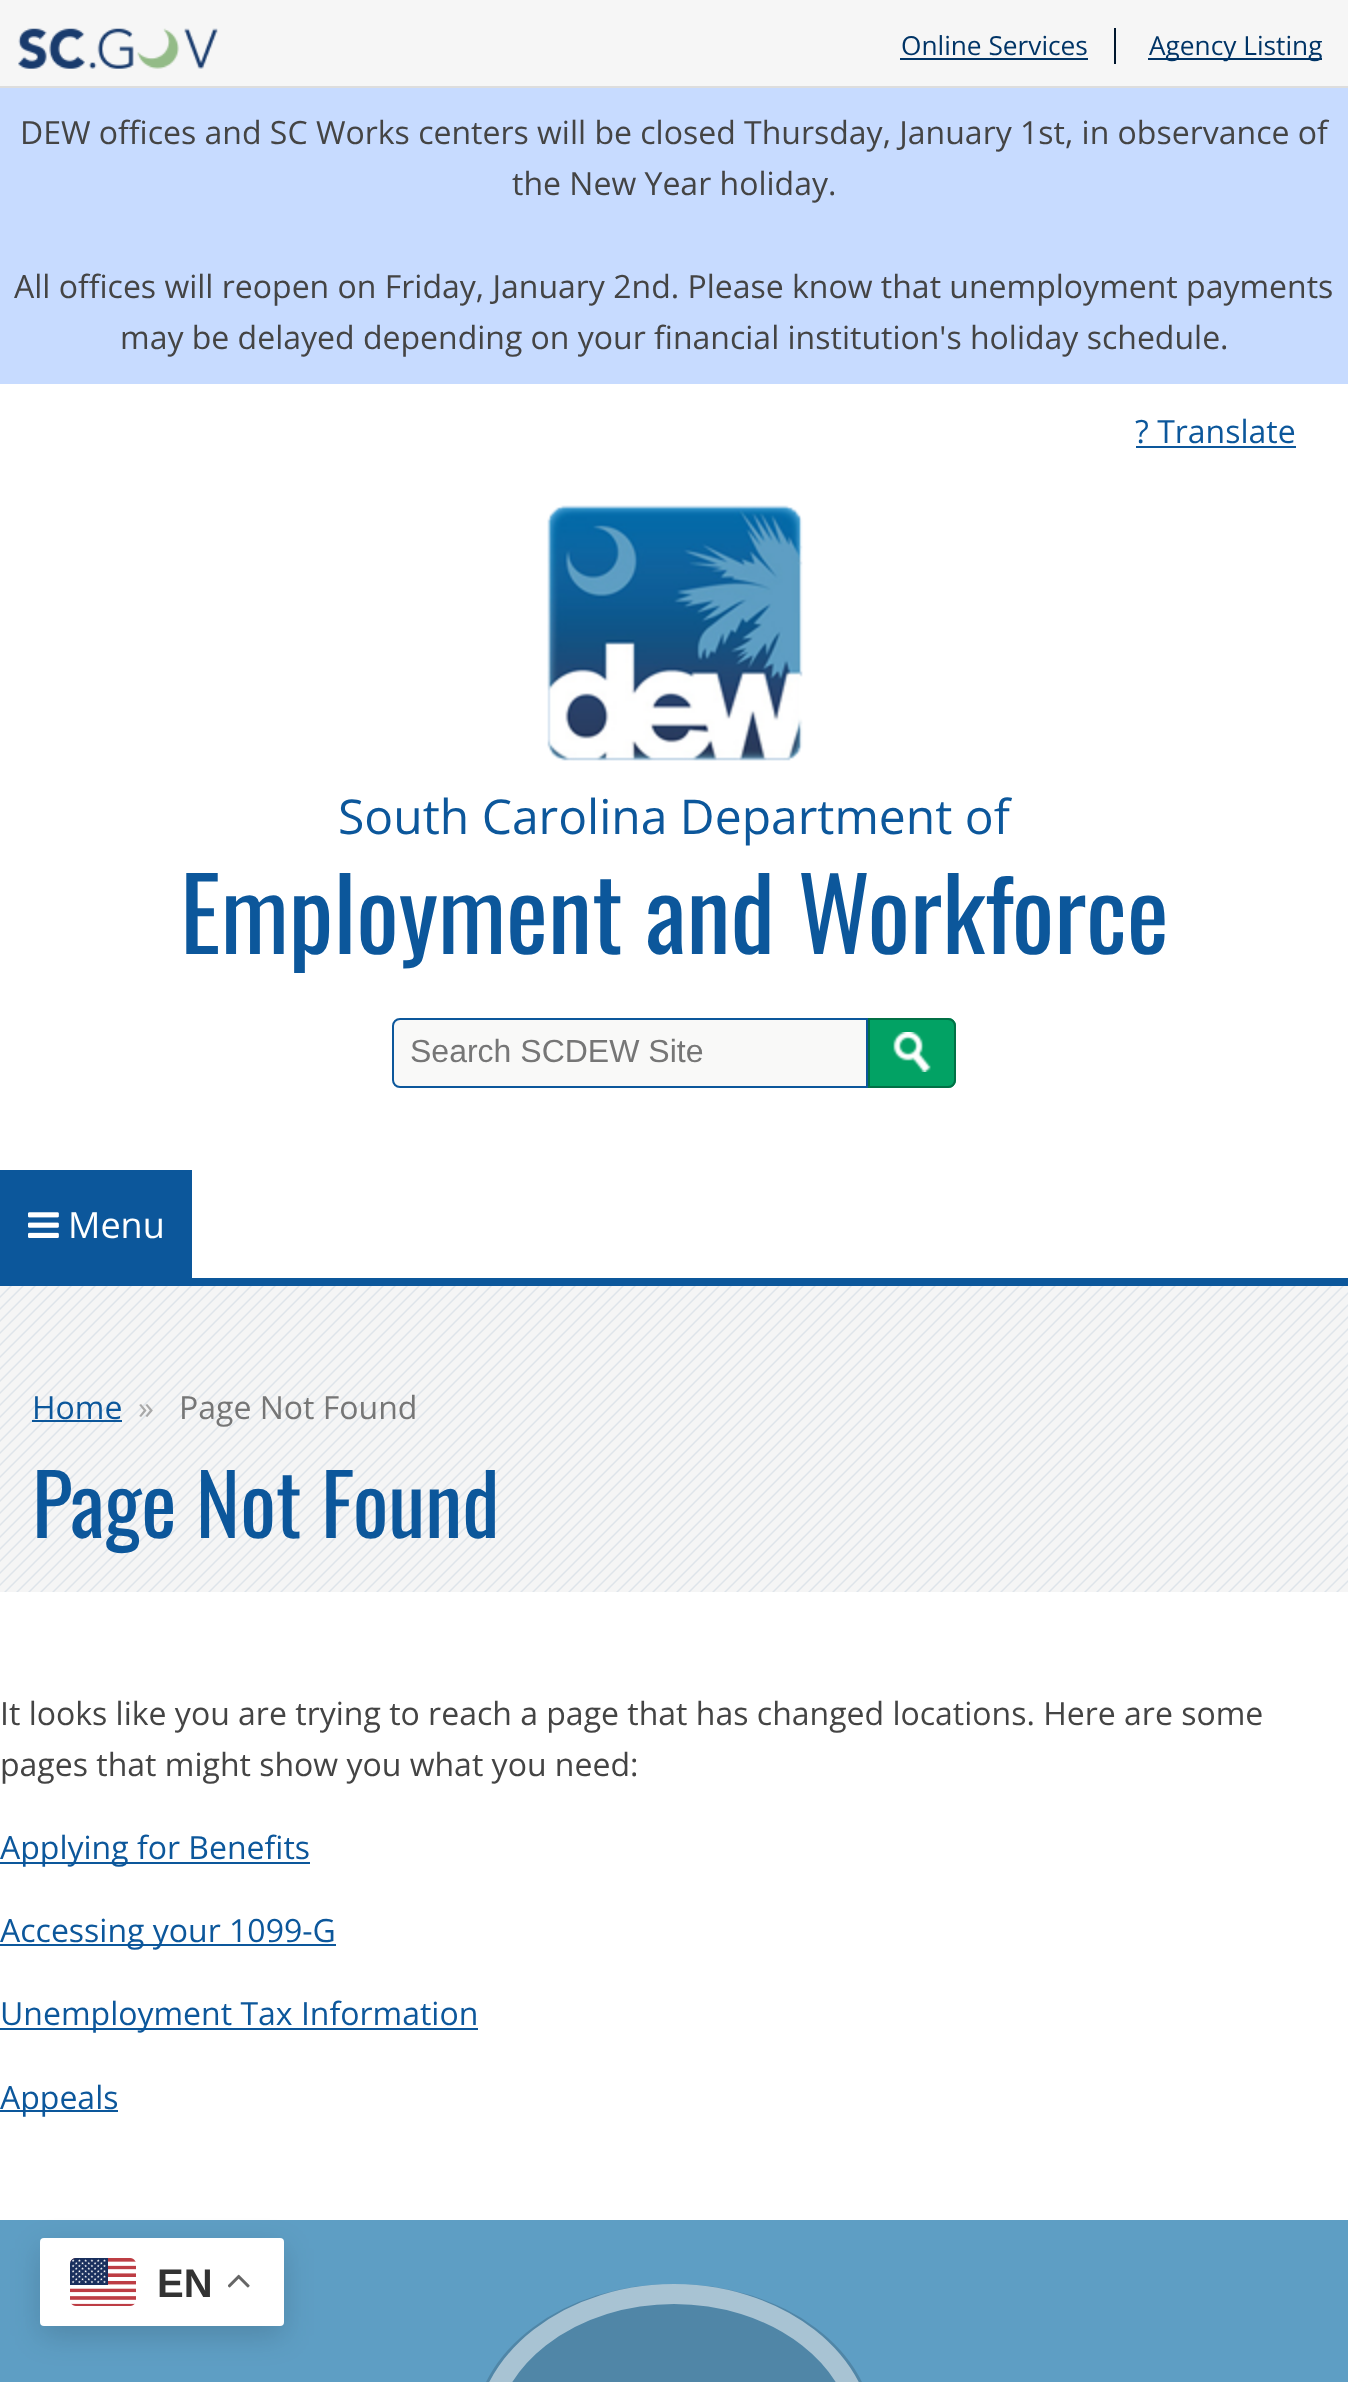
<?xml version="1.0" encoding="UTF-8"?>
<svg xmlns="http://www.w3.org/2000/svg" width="1348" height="2382">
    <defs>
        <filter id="blur1" x="-50%" y="-200%" width="200%" height="500%"><feGaussianBlur stdDeviation="15"/></filter>
    </defs>
    <rect width="100%" height="100%" fill="#FFFFFF"/>
    <rect x="0" y="0" width="1348" height="86" fill="#F6F6F6"/>
    <rect x="0" y="86" width="1348" height="2" fill="#DDDDDD"/>
    <image x="18" y="28" width="200" height="41" href="img_01.png"/>
    <text x="901" y="55" font-family="Open Sans" font-size="26.25" fill="#003466">Online Services</text>
    <rect x="1114" y="28" width="2" height="36" fill="#00172E"/>
    <rect x="900" y="58" width="188" height="2" fill="#003466"/>
    <rect x="1148" y="58" width="174" height="2" fill="#003466"/>
    <text x="1149" y="55" font-family="Open Sans" font-size="26.25" fill="#003466">Agency Listing</text>
    <rect x="0" y="88" width="1348" height="296" fill="#C7DBFF"/>
    <text x="20" y="144" font-family="Open Sans" font-size="32" fill="#444444">DEW offices and SC Works centers will be closed Thursday, January 1st, in observance of</text>
    <text x="512" y="195" font-family="Open Sans" font-size="32" fill="#444444">the New Year holiday.</text>
    <text x="14" y="298" font-family="Open Sans" font-size="32" fill="#444444">All offices will reopen on Friday, January 2nd. Please know that unemployment payments</text>
    <text x="120" y="349" font-family="Open Sans" font-size="32" fill="#444444">may be delayed depending on your financial institution's holiday schedule.</text>
    <text x="1135" y="443" font-family="Open Sans" font-size="32" fill="#0C579B">? Translate</text>
    <rect x="1136" y="446" width="160" height="2" fill="#0C579B"/>
    <image x="547" y="505" width="256" height="256" href="img_02.png"/>
    <text x="338" y="834" font-family="Open Sans" font-size="48" fill="#0C579B">South Carolina Department of</text>
    <text x="180" y="954" font-family="Oswald" font-size="100" fill="#0C579B">Employment and Workforce</text>
    <path d="M 400 1019 H 867 V 1087 H 400 C 396 1087 393 1084 393 1080 V 1026 C 393 1022 396 1019 400 1019 Z" fill="#F9F9F8" stroke="#0C579B" stroke-width="2"/>
    <text x="410" y="1062" font-family="Liberation Sans" font-size="32" fill="#767676">Search SCDEW Site</text>
    <path d="M 868 1018 H 948 C 952.5 1018 956 1021.5 956 1026 V 1080 C 956 1084.5 952.5 1088 948 1088 H 868 Z" fill="#02A264"/>
    <image x="893" y="1032" width="38" height="40" href="img_03.png"/>
    <path d="M 869 1019 H 948 C 952 1019 955 1022 955 1026 V 1080 C 955 1084 952 1087 948 1087 H 869 Z" fill="none" stroke="#017045" stroke-width="2"/>
    <rect x="0" y="1278" width="1348" height="8" fill="#0C579B"/>
    <rect x="0" y="1170" width="192" height="108" fill="#0C579B"/>
    <image x="28" y="1212" width="31" height="26" href="img_04.png"/>
    <text x="68" y="1238" font-family="Open Sans" font-size="36" fill="#FFFFFF">Menu</text>
    <rect x="0" y="1286" width="1348" height="306" fill="#F5F5F5"/>
    <image x="0" y="1286" width="1348" height="306" href="img_05.png"/>
    <text x="32" y="1419" font-family="Open Sans" font-size="32" fill="#0C579B">Home</text>
    <rect x="32" y="1420" width="90" height="2" fill="#0C579B"/>
    <text x="138" y="1419" font-family="Open Sans" font-size="32" fill="#A9A9A9">»</text>
    <text x="179" y="1419" font-family="Open Sans" font-size="32" fill="#767676">Page Not Found</text>
    <text x="32" y="1538" font-family="Oswald" font-size="84" fill="#0C579B">Page Not Found</text>
    <text font-family="Open Sans" font-size="32" fill="#444444">
        <tspan x="0" y="1725">It looks like you are trying to reach a page that has changed locations. Here are some</tspan>
        <tspan x="0" y="1776">pages that might show you what you need:</tspan>
    </text>
    <rect x="0" y="1862" width="310" height="2" fill="#0C579B"/>
    <text x="0" y="1859" font-family="Open Sans" font-size="32" fill="#0C579B">Applying for Benefits</text>
    <rect x="0" y="1944" width="336" height="2" fill="#0C579B"/>
    <text x="0" y="1942" font-family="Open Sans" font-size="32" fill="#0C579B">Accessing your 1099-G</text>
    <rect x="0" y="2028" width="478" height="2" fill="#0C579B"/>
    <text x="0" y="2025" font-family="Open Sans" font-size="32" fill="#0C579B">Unemployment Tax Information</text>
    <rect x="0" y="2110" width="118" height="2" fill="#0C579B"/>
    <text x="0" y="2109" font-family="Open Sans" font-size="32" fill="#0C579B">Appeals</text>
    <rect x="0" y="2220" width="1348" height="162" fill="#5E9EC4"/>
    <rect x="40" y="2248" width="244" height="88" rx="4" fill="#000000" fill-opacity="0.15" filter="url(#blur1)"/>
    <rect x="40" y="2238" width="244" height="88" rx="4" fill="#FFFFFF"/>
    <image x="70" y="2258" width="66" height="48" href="img_06.png"/>
    <text x="157" y="2297" font-family="Liberation Sans" font-size="40" font-weight="700" fill="#333333">EN</text>
    <image x="228" y="2274" width="22" height="14" href="img_07.png"/>
    <rect x="474" y="2284" width="400" height="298" rx="200" fill="#5086A7"/>
    <rect x="484" y="2294" width="380" height="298" rx="190" fill="none" stroke="#FFFFFF" stroke-opacity="0.5" stroke-width="20"/>
</svg>
